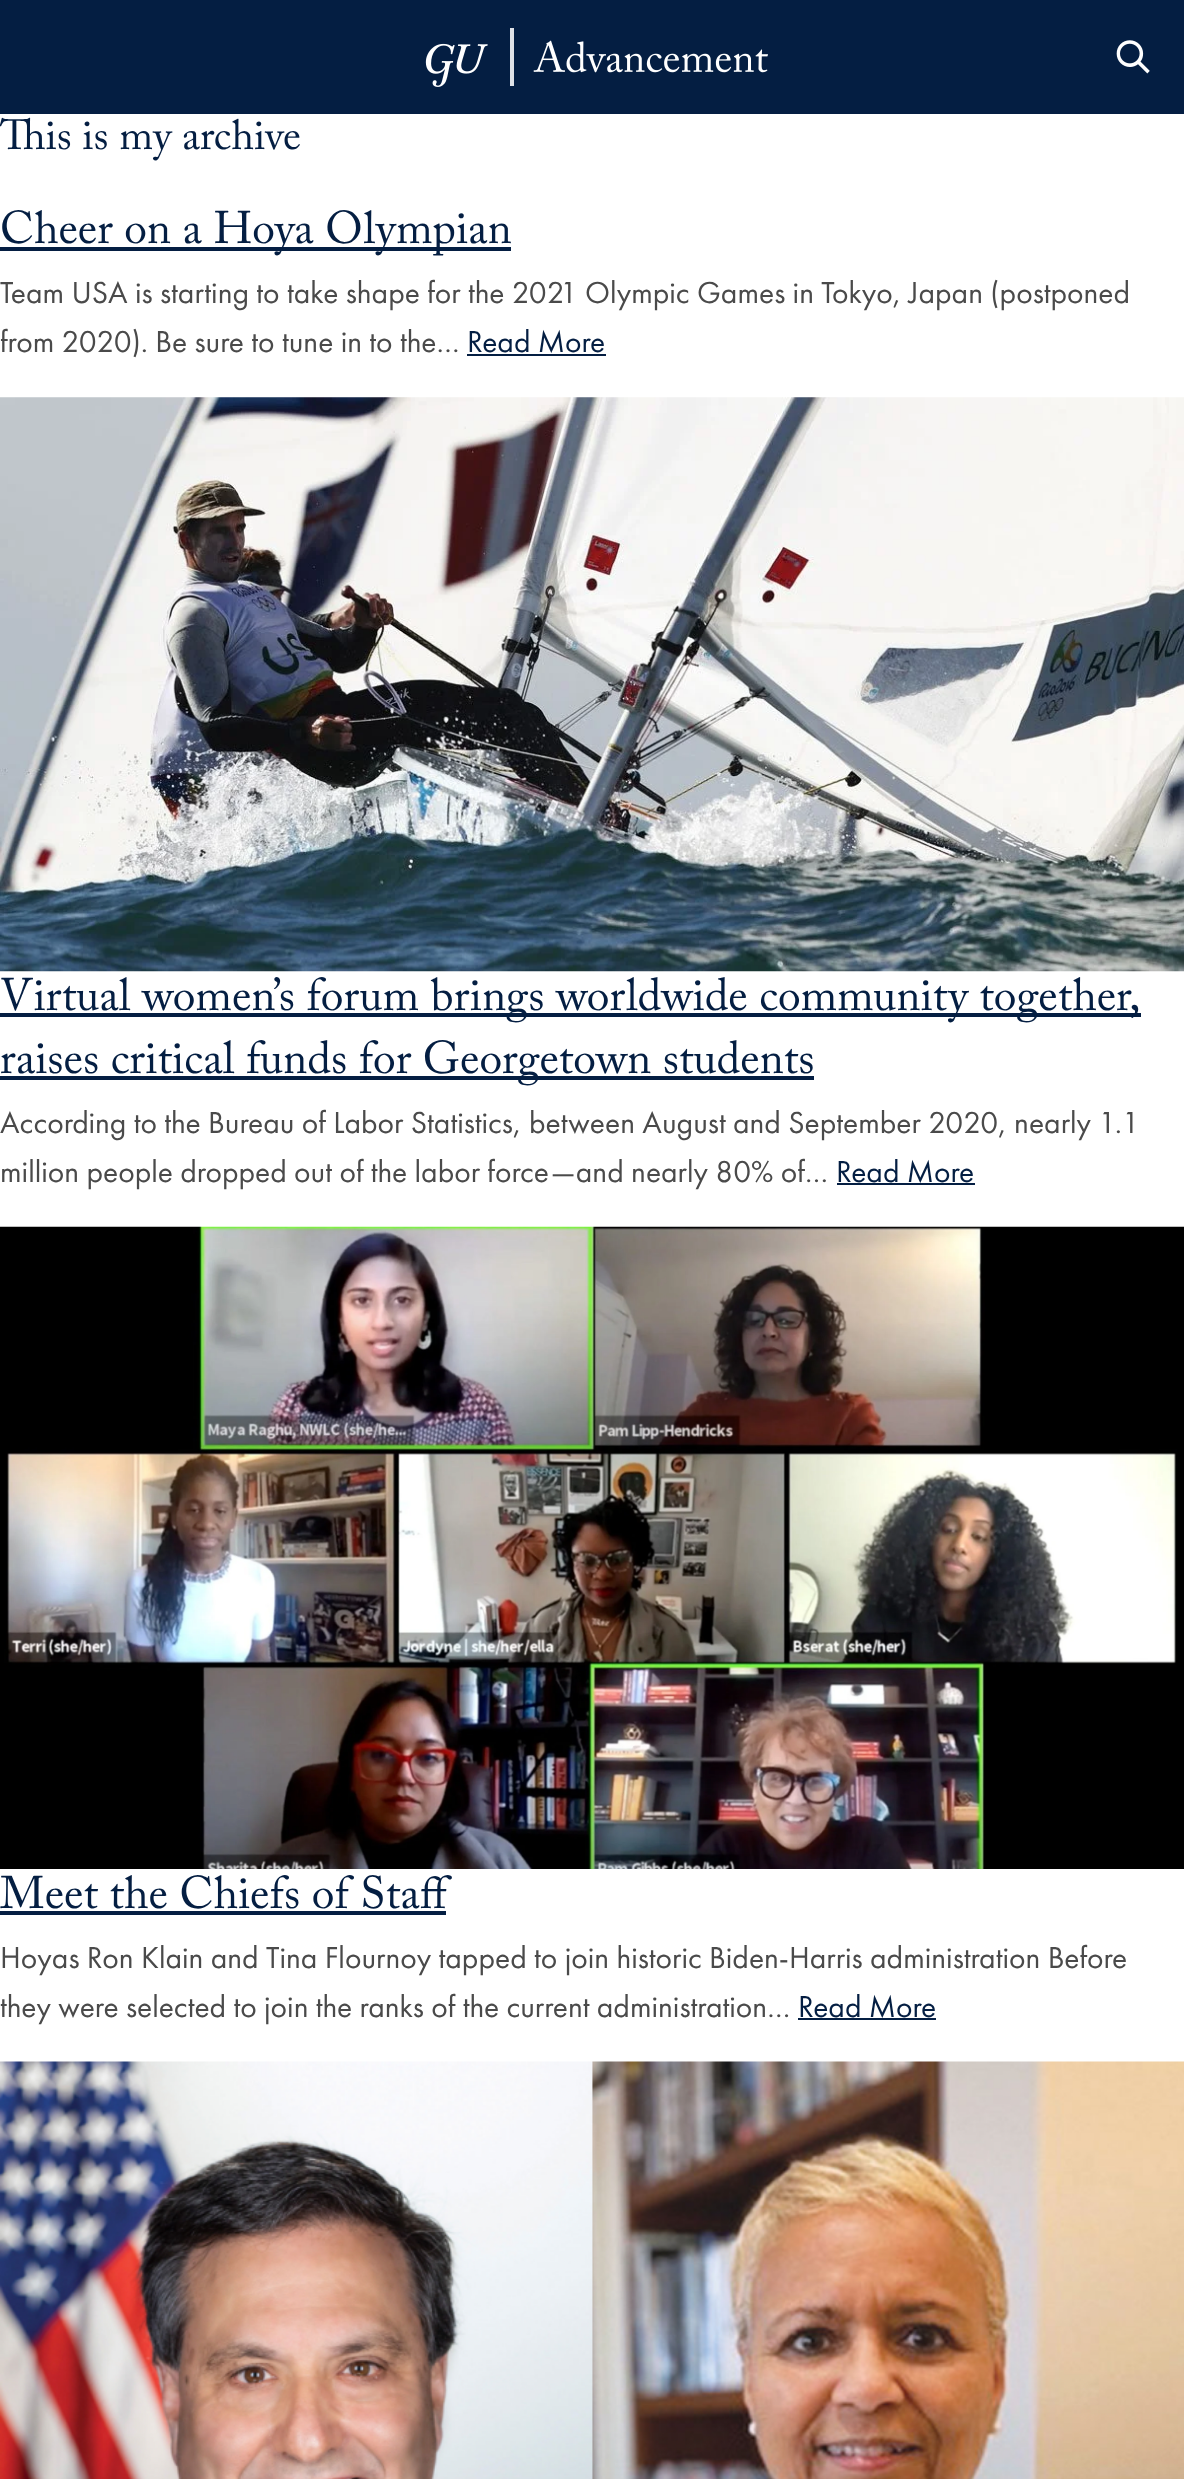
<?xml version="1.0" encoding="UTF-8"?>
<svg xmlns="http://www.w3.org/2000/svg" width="1184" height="2479">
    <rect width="100%" height="100%" fill="#FFFFFF"/>
    <rect x="0" y="0" width="1184" height="114" fill="#041E42"/>
    <image x="425" y="28" width="343" height="59" href="img_01.png"/>
    <image x="1116" y="40" width="34" height="34" href="img_02.png"/>
    <text x="0" y="149" font-family="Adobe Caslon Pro" font-size="42" fill="#041E42">This is my archive</text>
    <rect x="0" y="247" width="511" height="4" fill="#041E42"/>
    <text x="0" y="243" font-family="Adobe Caslon Pro" font-size="45.5" fill="#041E42">Cheer on a Hoya Olympian</text>
    <text font-family="Futura PT" font-size="31.5" fill="#4A4A4A">
        <tspan x="0" y="303">Team USA is starting to take shape for the 2021 Olympic Games in Tokyo, Japan (postponed</tspan>
        <tspan x="0" y="352">from 2020). Be sure to tune in to the…</tspan>
    </text>
    <text x="467" y="352" font-family="Futura PT" font-size="31.5" fill="#041E42">Read More</text>
    <rect x="467" y="354" width="139" height="2" fill="#041E42"/>
    <image x="0" y="397" width="1184" height="575" href="img_03.png"/>
    <rect x="0" y="1013" width="1141" height="4" fill="#041E42"/>
    <text x="0" y="1010" font-family="Adobe Caslon Pro" font-size="45.5" fill="#041E42">Virtual women’s forum brings worldwide community together,</text>
    <rect x="0" y="1076" width="814" height="4" fill="#041E42"/>
    <text x="0" y="1073" font-family="Adobe Caslon Pro" font-size="45.5" fill="#041E42">raises critical funds for Georgetown students</text>
    <text font-family="Futura PT" font-size="31.5" fill="#4A4A4A">
        <tspan x="0" y="1133">According to the Bureau of Labor Statistics, between August and September 2020, nearly 1.1</tspan>
        <tspan x="0" y="1182">million people dropped out of the labor force—and nearly 80% of…</tspan>
    </text>
    <text x="836" y="1182" font-family="Futura PT" font-size="31.5" fill="#041E42">Read More</text>
    <rect x="837" y="1183" width="138" height="2" fill="#041E42"/>
    <image x="0" y="1226" width="1184" height="643" href="img_04.png"/>
    <text x="0" y="1908" font-family="Adobe Caslon Pro" font-size="45.5" fill="#041E42">Meet the Chiefs of Staff</text>
    <rect x="0" y="1911" width="446" height="4" fill="#041E42"/>
    <text font-family="Futura PT" font-size="31.5" fill="#4A4A4A">
        <tspan x="0" y="1968">Hoyas Ron Klain and Tina Flournoy tapped to join historic Biden-Harris administration Before</tspan>
        <tspan x="0" y="2017">they were selected to join the ranks of the current administration…</tspan>
    </text>
    <text x="798" y="2017" font-family="Futura PT" font-size="31.5" fill="#041E42">Read More</text>
    <rect x="798" y="2018" width="138" height="2" fill="#041E42"/>
    <image x="0" y="2061" width="1184" height="418" href="img_05.png"/>
</svg>
